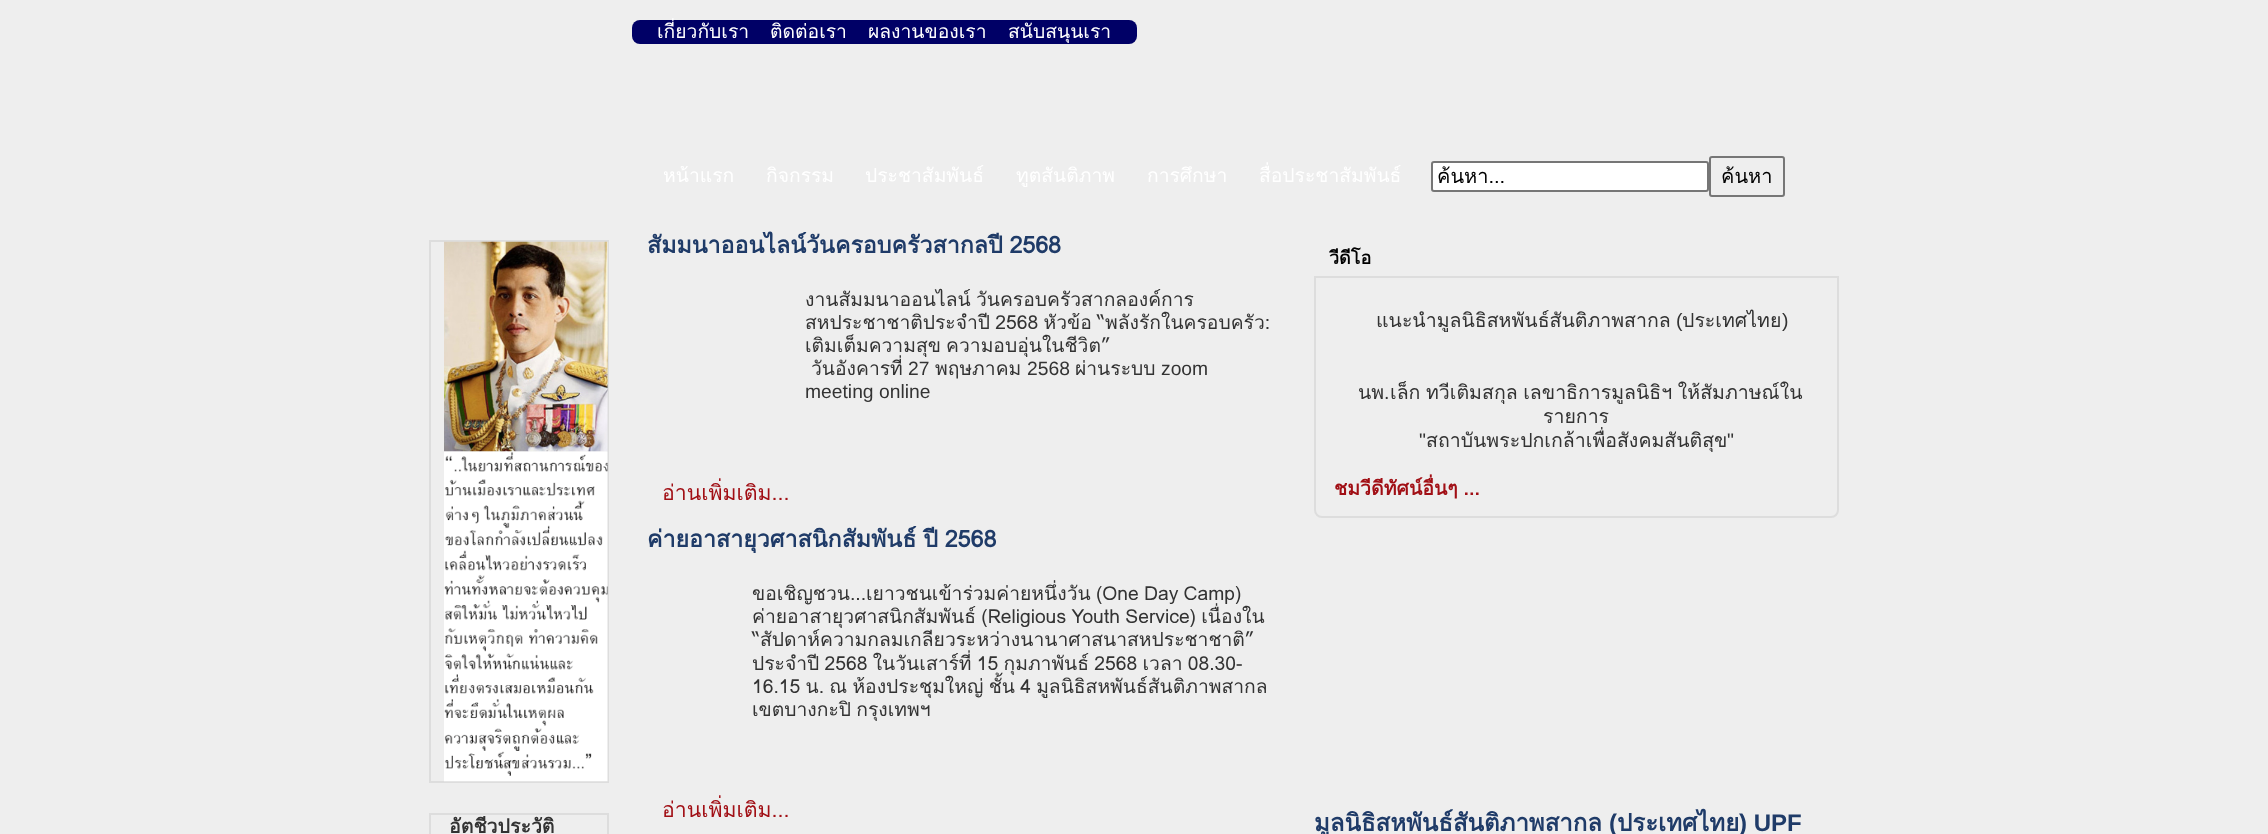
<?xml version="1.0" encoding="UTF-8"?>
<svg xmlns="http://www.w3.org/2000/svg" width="2268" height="834">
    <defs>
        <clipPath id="clip1"><rect x="1437" y="164" width="266" height="25"/></clipPath>
    </defs>
    <rect width="100%" height="100%" fill="#EEEEEE"/>
    <rect x="632" y="20" width="505" height="24" rx="8" fill="#000066"/>
    <text x="657" y="38" font-family="Loma" font-size="19.3" fill="#FFFFFF">เกี่ยวกับเรา</text>
    <text x="770" y="38" font-family="Loma" font-size="19.3" fill="#FFFFFF">ติดต่อเรา</text>
    <text x="868" y="38" font-family="Loma" font-size="19.3" fill="#FFFFFF">ผลงานของเรา</text>
    <text x="1008" y="38" font-family="Loma" font-size="19.3" fill="#FFFFFF">สนับสนุนเรา</text>
    <text x="663" y="182" font-family="Loma" font-size="19.3" fill="#FFFFFF">หน้าแรก</text>
    <text x="766" y="182" font-family="Loma" font-size="19.3" fill="#FFFFFF">กิจกรรม</text>
    <text x="865" y="182" font-family="Loma" font-size="19.3" fill="#FFFFFF">ประชาสัมพันธ์</text>
    <text x="1016" y="182" font-family="Loma" font-size="19.3" fill="#FFFFFF">ทูตสันติภาพ</text>
    <text x="1147" y="182" font-family="Loma" font-size="19.3" fill="#FFFFFF">การศึกษา</text>
    <text x="1259" y="182" font-family="Loma" font-size="19.3" fill="#FFFFFF">สื่อประชาสัมพันธ์</text>
    <rect x="1432" y="162" width="276" height="29" rx="2" fill="#FFFFFF" stroke="#767676" stroke-width="2"/>
    <g clip-path="url(#clip1)">
        <text x="1437" y="183" font-family="Loma" font-size="20" fill="#000000">ค้นหา...</text>
    </g>
    <rect x="1710" y="157" width="74" height="39" rx="2" fill="none" stroke="#767676" stroke-width="2"/>
    <text x="1721" y="183" font-family="Loma" font-size="20" fill="#000000">ค้นหา</text>
    <rect x="430" y="241" width="178" height="541" fill="none" stroke="#DDDDDD" stroke-width="2"/>
    <image x="444" y="241" width="164" height="211" href="img_01.png"/>
    <image x="444" y="451" width="164" height="331" href="img_02.png"/>
    <rect x="430" y="814" width="178" height="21" fill="none" stroke="#DDDDDD" stroke-width="2"/>
    <text x="449" y="833" font-family="Loma" font-size="19.5" font-weight="700" fill="#333333">อัตชีวประวัติ</text>
    <text x="647" y="253" word-spacing="-1" font-family="Loma" font-size="23.2" font-weight="700" fill="#1F3B68">สัมมนาออนไลน์วันครอบครัวสากลปี 2568</text>
    <text font-family="Loma" font-size="19.3" fill="#333333">
        <tspan x="805" y="306" word-spacing="-1.25">งานสัมมนาออนไลน์ วันครอบครัวสากลองค์การ</tspan>
        <tspan x="805" y="329" word-spacing="-1.25">สหประชาชาติประจำปี 2568 หัวข้อ “พลังรักในครอบครัว:</tspan>
        <tspan x="805" y="352" word-spacing="-1.25">เติมเต็มความสุข ความอบอุ่นในชีวิต”</tspan>
    </text>
    <text x="811" y="375" font-family="Loma" font-size="19.3" fill="#333333">วันอังคารที่</text>
    <text x="908" y="375" font-family="Liberation Sans" font-size="19.3" fill="#333333">27</text>
    <text x="935" y="375" font-family="Loma" font-size="19.3" fill="#333333">พฤษภาคม</text>
    <text x="1027" y="375" font-family="Liberation Sans" font-size="19.3" fill="#333333">2568</text>
    <text x="1075" y="375" font-family="Loma" font-size="19.3" fill="#333333">ผ่านระบบ</text>
    <text x="1161" y="375" font-family="Liberation Sans" font-size="19.3" fill="#333333">zoom</text>
    <text x="805" y="398" font-family="Liberation Sans" font-size="19.3" fill="#333333">meeting online</text>
    <text x="662" y="500" font-family="Loma" font-size="21.25" fill="#A10F15">อ่านเพิ่มเติม...</text>
    <text x="647" y="547" word-spacing="-1" font-family="Loma" font-size="23.2" font-weight="700" fill="#1F3B68">ค่ายอาสายุวศาสนิกสัมพันธ์ ปี 2568</text>
    <text font-family="Loma" font-size="19.3" fill="#333333">
        <tspan x="752" y="600" word-spacing="-1.25">ขอเชิญชวน...เยาวชนเข้าร่วมค่ายหนึ่งวัน (One Day Camp)</tspan>
        <tspan x="752" y="623" word-spacing="-1.25">ค่ายอาสายุวศาสนิกสัมพันธ์ (Religious Youth Service) เนื่องใน</tspan>
        <tspan x="752" y="646">“สัปดาห์ความกลมเกลียวระหว่างนานาศาสนาสหประชาชาติ”</tspan>
        <tspan x="752" y="670" word-spacing="-1.25">ประจำปี 2568 ในวันเสาร์ที่ 15 กุมภาพันธ์ 2568 เวลา 08.30-</tspan>
        <tspan x="752" y="693" word-spacing="-1.25">16.15 น. ณ ห้องประชุมใหญ่ ชั้น 4 มูลนิธิสหพันธ์สันติภาพสากล</tspan>
        <tspan x="752" y="716" word-spacing="-1.25">เขตบางกะปิ กรุงเทพฯ</tspan>
    </text>
    <text x="662" y="817" font-family="Loma" font-size="21.25" fill="#A10F15">อ่านเพิ่มเติม...</text>
    <text x="1329" y="264" font-family="Loma" font-size="18" font-weight="700" fill="#000000">วีดีโอ</text>
    <path d="M 1315 277 H 1838 V 510 C 1838 514 1835 517 1831 517 H 1322 C 1318 517 1315 514 1315 510 Z" fill="none" stroke="#DDDDDD" stroke-width="2"/>
    <text x="1376" y="327" font-family="Loma" font-size="19.5" fill="#333333">แนะนำมูลนิธิสหพันธ์สันติภาพสากล</text>
    <text x="1676" y="327" font-family="Liberation Sans" font-size="19.5" fill="#333333">(</text>
    <text x="1682" y="327" font-family="Loma" font-size="19.5" fill="#333333">ประเทศไทย</text>
    <text x="1782" y="327" font-family="Liberation Sans" font-size="19.5" fill="#333333">)</text>
    <text x="1358" y="399" font-family="Loma" font-size="19.5" fill="#333333">นพ</text>
    <text x="1384" y="399" font-family="Liberation Sans" font-size="19.5" fill="#333333">.</text>
    <text x="1390" y="399" word-spacing="-1" font-family="Loma" font-size="19.5" fill="#333333">เล็ก ทวีเติมสกุล เลขาธิการมูลนิธิฯ ให้สัมภาษณ์ใน</text>
    <text x="1543" y="423" font-family="Loma" font-size="19.5" fill="#333333">รายการ</text>
    <text x="1419" y="447" font-family="Liberation Sans" font-size="19.5" fill="#333333">"</text>
    <text x="1426" y="447" font-family="Loma" font-size="19.5" fill="#333333">สถาบันพระปกเกล้าเพื่อสังคมสันติสุข</text>
    <text x="1727" y="447" font-family="Liberation Sans" font-size="19.5" fill="#333333">"</text>
    <text x="1334" y="495" word-spacing="-1" font-family="Loma" font-size="19.5" font-weight="700" fill="#A10F15">ชมวีดีทัศน์อื่นๆ ...</text>
    <text x="1314" y="831" font-family="Loma" font-size="24" font-weight="700" fill="#1F3B68">มูลนิธิสหพันธ์สันติภาพสากล</text>
    <text x="1609" y="831" font-family="Liberation Sans" font-size="24" font-weight="700" fill="#1F3B68">(</text>
    <text x="1617" y="831" font-family="Loma" font-size="24" font-weight="700" fill="#1F3B68">ประเทศไทย</text>
    <text x="1739" y="831" font-family="Liberation Sans" font-size="24" font-weight="700" fill="#1F3B68">) UPF</text>
</svg>
